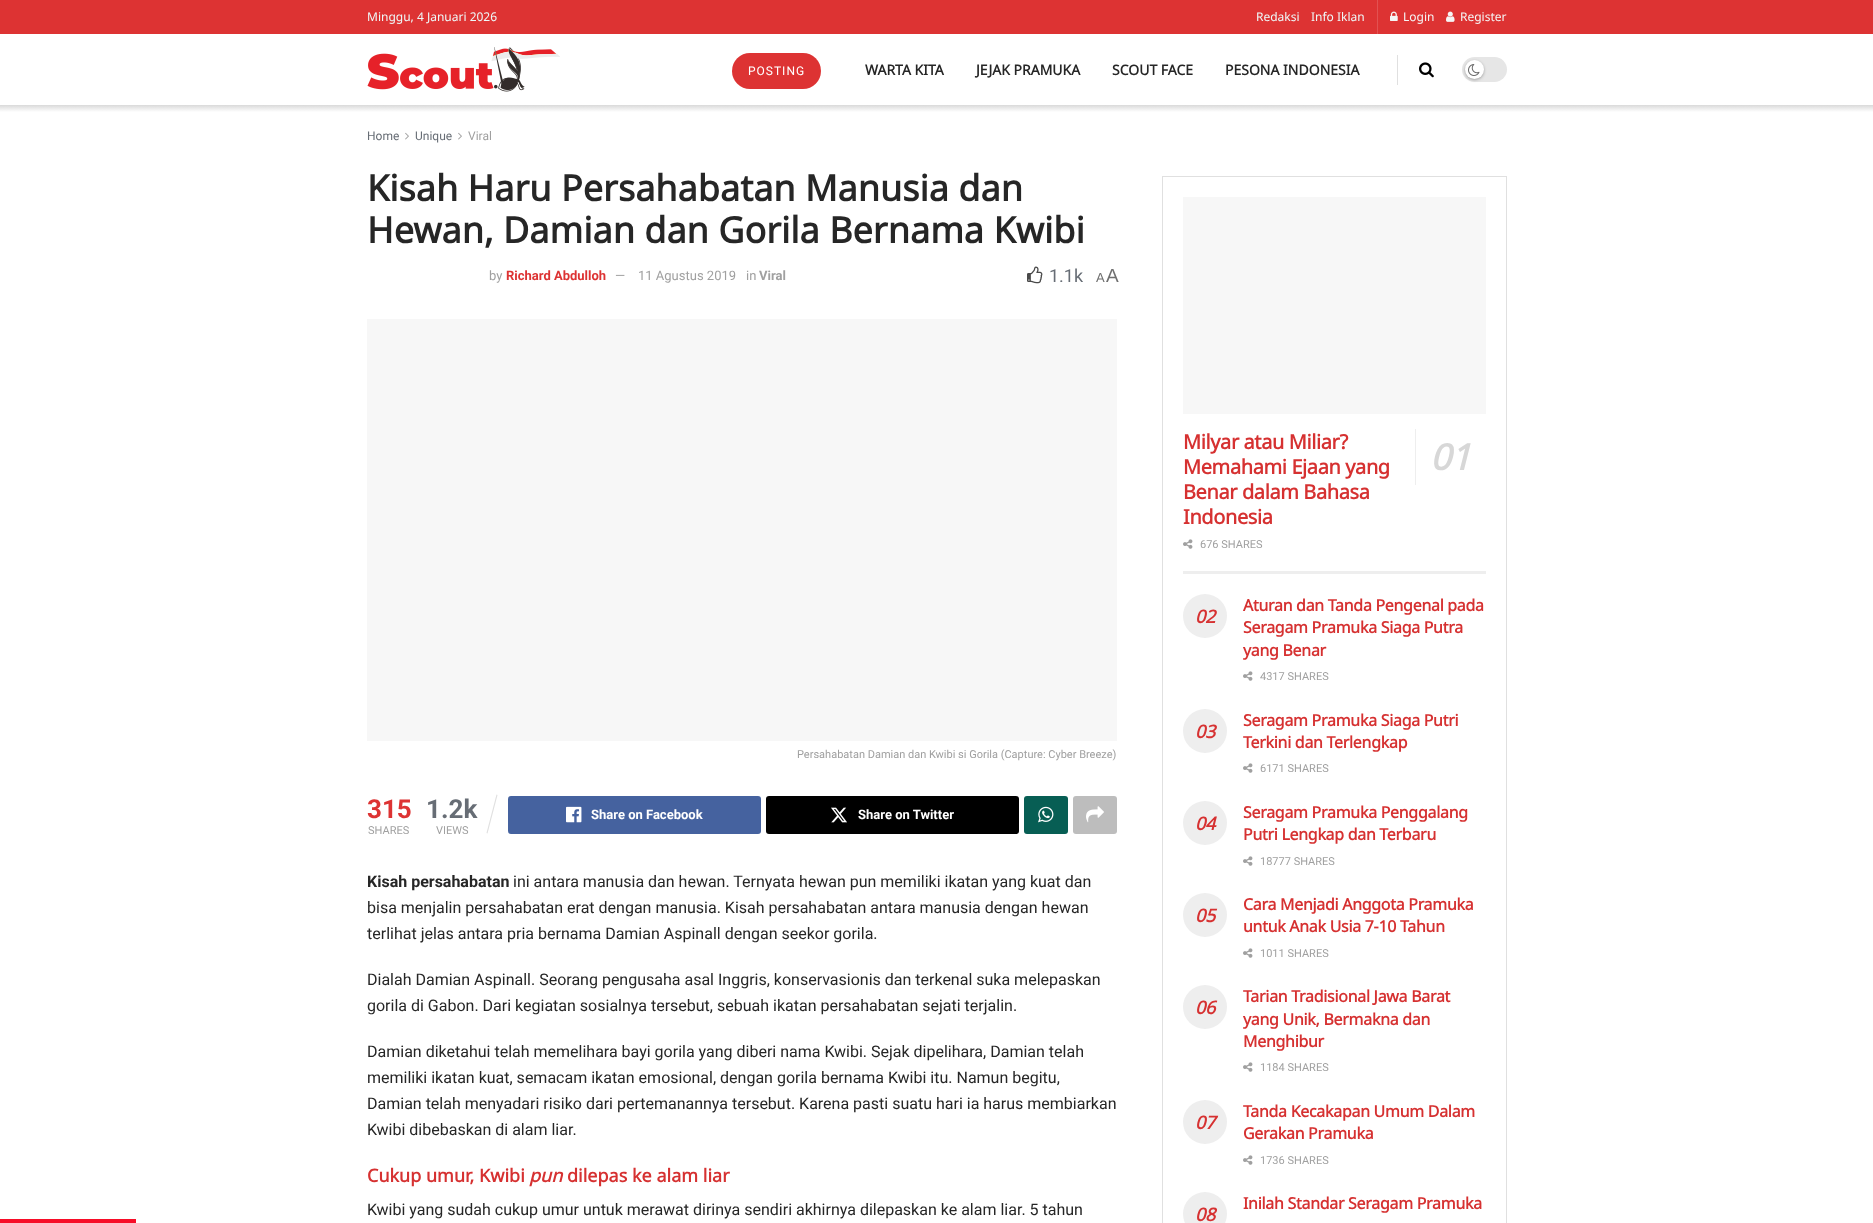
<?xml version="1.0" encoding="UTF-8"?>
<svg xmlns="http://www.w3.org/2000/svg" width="1873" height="1223">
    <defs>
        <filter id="blur1" x="-50%" y="-200%" width="200%" height="500%"><feGaussianBlur stdDeviation="1.5"/></filter>
        <linearGradient id="g1" gradientUnits="userSpaceOnUse" x1="937" y1="105" x2="937" y2="112"><stop offset="0" stop-color="#D9D9D9"/><stop offset="1" stop-color="#FFFFFF"/></linearGradient>
    </defs>
    <rect width="100%" height="100%" fill="#FFFFFF"/>
    <rect x="0" y="1219" width="136" height="4" fill="#F70D28"/>
    <rect x="0" y="0" width="1873" height="34" fill="#DD3333"/>
    <text x="367" y="21" font-family="Noto Sans" font-size="12" fill="#EEF9F9">Minggu, 4 Januari 2026</text>
    <rect x="1377" y="0" width="1" height="34" fill="#E25252"/>
    <text x="1256" y="21" font-family="Noto Sans" font-size="12" fill="#EEF9F9">Redaksi</text>
    <text x="1311" y="21" font-family="Noto Sans" font-size="12" fill="#EEF9F9">Info Iklan</text>
    <image x="1390" y="11" width="8" height="10" href="img_01.png"/>
    <text x="1403" y="21" font-family="Noto Sans" font-size="12" fill="#F5F5F5">Login</text>
    <image x="1446" y="11" width="9" height="11" href="img_02.png"/>
    <text x="1460" y="21" font-family="Noto Sans" font-size="12" fill="#F5F5F5">Register</text>
    <image x="367" y="47" width="193" height="45" href="img_03.png"/>
    <rect x="732" y="53" width="89" height="36" rx="18" fill="#DD3333"/>
    <text x="748" y="75" font-family="Roboto" font-size="12" letter-spacing="1" fill="#FFFFFF">POSTING</text>
    <text x="865" y="75" font-family="Noto Sans" font-size="14" font-weight="700" fill="#262626">WARTA KITA</text>
    <text x="976" y="75" font-family="Noto Sans" font-size="14" font-weight="700" fill="#262626">JEJAK PRAMUKA</text>
    <text x="1112" y="75" font-family="Noto Sans" font-size="14" font-weight="700" fill="#262626">SCOUT FACE</text>
    <text x="1225" y="75" font-family="Noto Sans" font-size="14" font-weight="700" fill="#262626">PESONA INDONESIA</text>
    <rect x="1397" y="55" width="1" height="30" fill="#E0E0E0"/>
    <image x="1419" y="62" width="15" height="16" href="img_04.png"/>
    <rect x="1462" y="57" width="45" height="25" rx="12.5" fill="#E6E6E6"/>
    <rect x="1465" y="61" width="19" height="19" rx="9.5" fill="#000000" fill-opacity="0.3" filter="url(#blur1)"/>
    <circle cx="1474.5" cy="69.5" r="9.5" fill="#FFFFFF"/>
    <image x="1468" y="64" width="12" height="12" href="img_05.png"/>
    <rect x="0" y="105" width="1873" height="7" fill="url(#g1)"/>
    <text x="367" y="140" font-family="Roboto" font-size="12" fill="#676D75">Home</text>
    <image x="405" y="132" width="4" height="8" href="img_06.png"/>
    <text x="415" y="140" font-family="Roboto" font-size="12" fill="#676D75">Unique</text>
    <image x="458" y="132" width="4" height="8" href="img_06.png"/>
    <text x="468" y="140" font-family="Roboto" font-size="12" fill="#A0A0A0">Viral</text>
    <text font-family="Noto Sans" font-size="36" font-weight="700" fill="#262626">
        <tspan x="367" y="201">Kisah Haru Persahabatan Manusia dan</tspan>
        <tspan x="367" y="243">Hewan, Damian dan Gorila Bernama Kwibi</tspan>
    </text>
    <text x="489" y="280" font-family="Roboto" font-size="13" fill="#A0A0A0">by</text>
    <text x="506" y="280" font-family="Roboto" font-size="13" font-weight="700" fill="#DD3333">Richard Abdulloh</text>
    <text x="615" y="280" font-family="Roboto" font-size="13" fill="#A0A0A0">—</text>
    <text x="638" y="280" font-family="Roboto" font-size="13" fill="#A0A0A0">11 Agustus 2019</text>
    <text x="746" y="280" font-family="Roboto" font-size="13" fill="#A0A0A0">in</text>
    <text x="759" y="280" font-family="Roboto" font-size="13" font-weight="700" fill="#A0A0A0">Viral</text>
    <image x="1027" y="266" width="16" height="18" href="img_07.png"/>
    <text x="1049" y="282" font-family="Roboto" font-size="18" fill="#676D75">1.1k</text>
    <text x="1096" y="282" font-family="Liberation Sans" font-size="13" fill="#707070">A</text>
    <text x="1106" y="282" font-family="Liberation Sans" font-size="19" fill="#707070">A</text>
    <rect x="367" y="319" width="750" height="422" fill="#F7F7F7"/>
    <text x="797" y="758" font-family="Roboto" font-size="11" fill="#A0A0A0">Persahabatan Damian dan Kwibi si Gorila (Capture: Cyber Breeze)</text>
    <text x="367" y="818" font-family="Roboto" font-size="26" font-weight="700" fill="#DD3333">315</text>
    <text x="368" y="834" font-family="Roboto" font-size="11" fill="#A0A0A0">SHARES</text>
    <text x="426" y="818" font-family="Roboto" font-size="26" font-weight="700" fill="#676D75">1.2k</text>
    <path d="M 496.5 794.5 L 497.5 795 L 487.5 833.5 L 486.5 833 Z" fill="#E0E0E0"/>
    <text x="436" y="834" font-family="Roboto" font-size="11" fill="#A0A0A0">VIEWS</text>
    <rect x="508" y="796" width="253" height="38" rx="3" fill="#45629F"/>
    <image x="566" y="806" width="16" height="17" href="img_08.png"/>
    <text x="591" y="819" font-family="Roboto" font-size="13" font-weight="700" fill="#FFFFFF">Share on Facebook</text>
    <rect x="766" y="796" width="253" height="38" rx="3" fill="#000000"/>
    <image x="831" y="807" width="16" height="16" href="img_09.png"/>
    <text x="858" y="819" font-family="Roboto" font-size="13" font-weight="700" fill="#FFFFFF">Share on Twitter</text>
    <rect x="1024" y="796" width="44" height="38" rx="3" fill="#075E54"/>
    <image x="1038" y="806" width="16" height="17" href="img_10.png"/>
    <rect x="1073" y="796" width="44" height="38" rx="3" fill="#BDBDBD"/>
    <image x="1086" y="806" width="18" height="17" href="img_11.png"/>
    <text x="367" y="887" font-family="Roboto" font-size="16" font-weight="700" fill="#262626">Kisah persahabatan</text>
    <text x="513" y="887" font-family="Roboto" font-size="16" fill="#262626">ini antara manusia dan hewan. Ternyata hewan pun memiliki ikatan yang kuat dan</text>
    <text font-family="Roboto" font-size="16" fill="#262626">
        <tspan x="367" y="913">bisa menjalin persahabatan erat dengan manusia. Kisah persahabatan antara manusia dengan hewan</tspan>
        <tspan x="367" y="939">terlihat jelas antara pria bernama Damian Aspinall dengan seekor gorila.</tspan>
    </text>
    <text font-family="Roboto" font-size="16" fill="#262626">
        <tspan x="367" y="985">Dialah Damian Aspinall. Seorang pengusaha asal Inggris, konservasionis dan terkenal suka melepaskan</tspan>
        <tspan x="367" y="1011">gorila di Gabon. Dari kegiatan sosialnya tersebut, sebuah ikatan persahabatan sejati terjalin.</tspan>
    </text>
    <text font-family="Roboto" font-size="16" fill="#262626">
        <tspan x="367" y="1057">Damian diketahui telah memelihara bayi gorila yang diberi nama Kwibi. Sejak dipelihara, Damian telah</tspan>
        <tspan x="367" y="1083">memiliki ikatan kuat, semacam ikatan emosional, dengan gorila bernama Kwibi itu. Namun begitu,</tspan>
        <tspan x="367" y="1109">Damian telah menyadari risiko dari pertemanannya tersebut. Karena pasti suatu hari ia harus membiarkan</tspan>
        <tspan x="367" y="1135">Kwibi dibebaskan di alam liar.</tspan>
    </text>
    <text x="367" y="1182" font-family="Noto Sans" font-size="18" font-weight="700" fill="#D63131">Cukup umur, Kwibi</text>
    <text x="529" y="1182" font-family="Noto Sans" font-size="18" font-weight="700" font-style="italic" fill="#D63131">pun</text>
    <text x="567" y="1182" font-family="Noto Sans" font-size="18" font-weight="700" fill="#D63131">dilepas ke alam liar</text>
    <text x="367" y="1215" font-family="Roboto" font-size="16" fill="#262626">Kwibi yang sudah cukup umur untuk merawat dirinya sendiri akhirnya dilepaskan ke alam liar. 5 tahun</text>
    <rect x="1162.5" y="176.5" width="344" height="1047" fill="none" stroke="#E0E0E0"/>
    <rect x="1183" y="571" width="303" height="3" fill="#EEEEEE"/>
    <rect x="1183" y="197" width="303" height="217" fill="#F7F7F7"/>
    <text x="1183" y="449" font-family="Noto Sans" font-size="20" font-weight="700" letter-spacing="-0.4" fill="#D63131">Milyar atau Miliar?</text>
    <rect x="1415" y="429" width="1" height="56" fill="#EEEEEE"/>
    <text x="1430" y="470" font-family="Noto Sans" font-size="36" font-weight="700" font-style="italic" letter-spacing="-0.4" fill="#D7D7D7">01</text>
    <text font-family="Noto Sans" font-size="20" font-weight="700" letter-spacing="-0.4" fill="#D63131">
        <tspan x="1183" y="474">Memahami Ejaan yang</tspan>
        <tspan x="1183" y="499">Benar dalam Bahasa</tspan>
        <tspan x="1183" y="524">Indonesia</tspan>
    </text>
    <image x="1183" y="539" width="10" height="10" href="img_12.png"/>
    <text x="1200" y="548" font-family="Roboto" font-size="11" fill="#A0A0A0">676 SHARES</text>
    <text x="1243" y="611" font-family="Noto Sans" font-size="16" font-weight="700" letter-spacing="-0.3" fill="#D63131">Aturan dan Tanda Pengenal pada</text>
    <circle cx="1205" cy="616" r="22" fill="#EEEEEE"/>
    <text x="1195" y="623" font-family="Noto Sans" font-size="18" font-weight="700" font-style="italic" letter-spacing="-0.3" fill="#D63131">02</text>
    <text font-family="Noto Sans" font-size="16" font-weight="700" letter-spacing="-0.3" fill="#D63131">
        <tspan x="1243" y="633">Seragam Pramuka Siaga Putra</tspan>
        <tspan x="1243" y="656">yang Benar</tspan>
    </text>
    <image x="1243" y="671" width="10" height="10" href="img_12.png"/>
    <text x="1260" y="680" font-family="Roboto" font-size="11" fill="#A0A0A0">4317 SHARES</text>
    <text x="1243" y="726" font-family="Noto Sans" font-size="16" font-weight="700" letter-spacing="-0.3" fill="#D63131">Seragam Pramuka Siaga Putri</text>
    <circle cx="1205" cy="731" r="22" fill="#EEEEEE"/>
    <text x="1195" y="738" font-family="Noto Sans" font-size="18" font-weight="700" font-style="italic" letter-spacing="-0.3" fill="#D63131">03</text>
    <text x="1243" y="748" font-family="Noto Sans" font-size="16" font-weight="700" letter-spacing="-0.3" fill="#D63131">Terkini dan Terlengkap</text>
    <image x="1243" y="763" width="10" height="10" href="img_12.png"/>
    <text x="1260" y="772" font-family="Roboto" font-size="11" fill="#A0A0A0">6171 SHARES</text>
    <text x="1243" y="818" font-family="Noto Sans" font-size="16" font-weight="700" letter-spacing="-0.3" fill="#D63131">Seragam Pramuka Penggalang</text>
    <circle cx="1205" cy="823" r="22" fill="#EEEEEE"/>
    <text x="1195" y="830" font-family="Noto Sans" font-size="18" font-weight="700" font-style="italic" letter-spacing="-0.3" fill="#D63131">04</text>
    <text x="1243" y="840" font-family="Noto Sans" font-size="16" font-weight="700" letter-spacing="-0.3" fill="#D63131">Putri Lengkap dan Terbaru</text>
    <image x="1243" y="856" width="10" height="10" href="img_12.png"/>
    <text x="1260" y="865" font-family="Roboto" font-size="11" fill="#A0A0A0">18777 SHARES</text>
    <text x="1243" y="910" font-family="Noto Sans" font-size="16" font-weight="700" letter-spacing="-0.3" fill="#D63131">Cara Menjadi Anggota Pramuka</text>
    <circle cx="1205" cy="915" r="22" fill="#EEEEEE"/>
    <text x="1195" y="922" font-family="Noto Sans" font-size="18" font-weight="700" font-style="italic" letter-spacing="-0.3" fill="#D63131">05</text>
    <text x="1243" y="932" font-family="Noto Sans" font-size="16" font-weight="700" letter-spacing="-0.3" fill="#D63131">untuk Anak Usia 7-10 Tahun</text>
    <image x="1243" y="948" width="10" height="10" href="img_12.png"/>
    <text x="1260" y="957" font-family="Roboto" font-size="11" fill="#A0A0A0">1011 SHARES</text>
    <text x="1243" y="1002" font-family="Noto Sans" font-size="16" font-weight="700" letter-spacing="-0.3" fill="#D63131">Tarian Tradisional Jawa Barat</text>
    <circle cx="1205" cy="1007" r="22" fill="#EEEEEE"/>
    <text x="1195" y="1014" font-family="Noto Sans" font-size="18" font-weight="700" font-style="italic" letter-spacing="-0.3" fill="#D63131">06</text>
    <text font-family="Noto Sans" font-size="16" font-weight="700" letter-spacing="-0.3" fill="#D63131">
        <tspan x="1243" y="1025">yang Unik, Bermakna dan</tspan>
        <tspan x="1243" y="1047">Menghibur</tspan>
    </text>
    <image x="1243" y="1062" width="10" height="10" href="img_12.png"/>
    <text x="1260" y="1071" font-family="Roboto" font-size="11" fill="#A0A0A0">1184 SHARES</text>
    <text x="1243" y="1117" font-family="Noto Sans" font-size="16" font-weight="700" letter-spacing="-0.3" fill="#D63131">Tanda Kecakapan Umum Dalam</text>
    <circle cx="1205" cy="1122" r="22" fill="#EEEEEE"/>
    <text x="1195" y="1129" font-family="Noto Sans" font-size="18" font-weight="700" font-style="italic" letter-spacing="-0.3" fill="#D63131">07</text>
    <text x="1243" y="1139" font-family="Noto Sans" font-size="16" font-weight="700" letter-spacing="-0.3" fill="#D63131">Gerakan Pramuka</text>
    <image x="1243" y="1155" width="10" height="10" href="img_12.png"/>
    <text x="1260" y="1164" font-family="Roboto" font-size="11" fill="#A0A0A0">1736 SHARES</text>
    <text x="1243" y="1209" font-family="Noto Sans" font-size="16" font-weight="700" letter-spacing="-0.3" fill="#D63131">Inilah Standar Seragam Pramuka</text>
    <circle cx="1205" cy="1214" r="22" fill="#EEEEEE"/>
    <text x="1195" y="1221" font-family="Noto Sans" font-size="18" font-weight="700" font-style="italic" letter-spacing="-0.3" fill="#D63131">08</text>
</svg>
